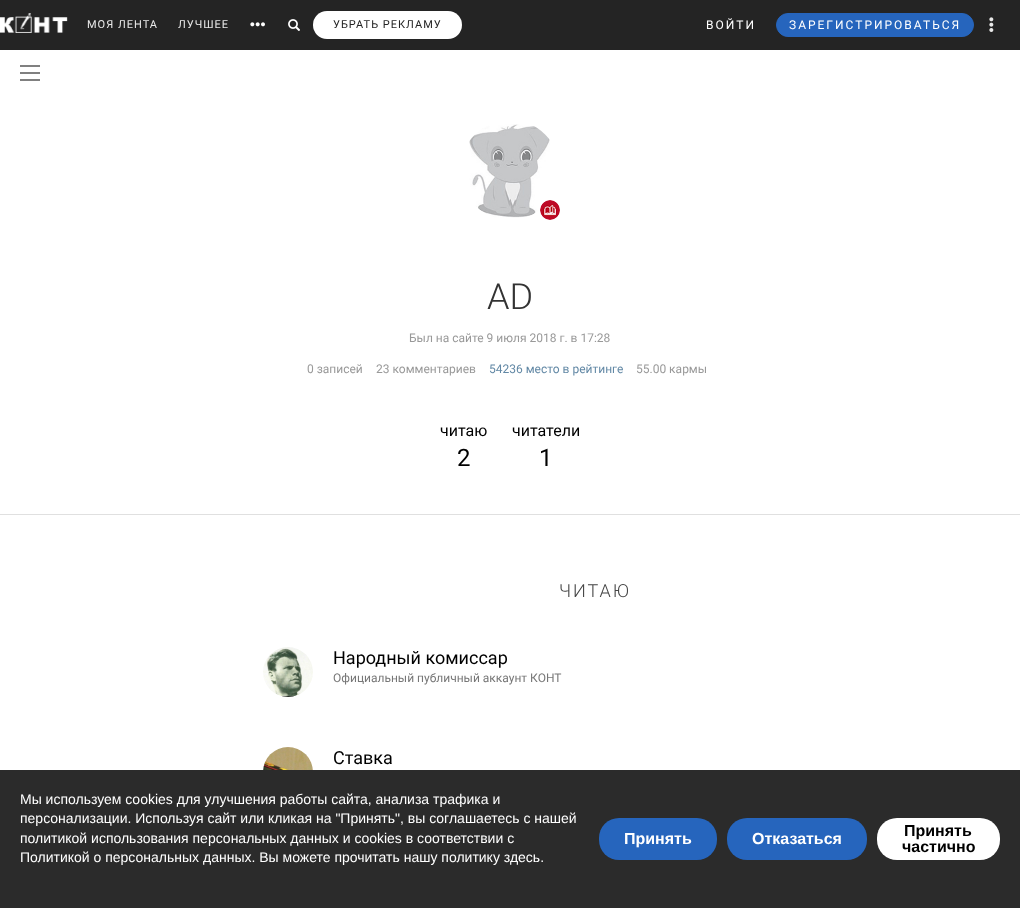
<?xml version="1.0" encoding="UTF-8"?>
<svg xmlns="http://www.w3.org/2000/svg" width="1020" height="908">
    <rect width="100%" height="100%" fill="#FFFFFF"/>
    <rect x="0" y="0" width="1020" height="50" fill="#242424"/>
    <image x="0" y="13" width="68" height="20" href="img_01.png"/>
    <text x="87" y="28" font-family="Roboto" font-size="11" letter-spacing="1" fill="#E9E9E9">МОЯ ЛЕНТА</text>
    <text x="178" y="28" font-family="Roboto" font-size="11" letter-spacing="1" fill="#E9E9E9">ЛУЧШЕЕ</text>
    <image x="250" y="22" width="15" height="5" href="img_02.png"/>
    <image x="288" y="19" width="12" height="12" href="img_03.png"/>
    <rect x="313" y="11" width="149" height="28" rx="14" fill="#FFFFFF"/>
    <text x="333" y="28" font-family="Roboto" font-size="11" letter-spacing="1" fill="#242424">УБРАТЬ РЕКЛАМУ</text>
    <text x="706" y="29" font-family="Roboto" font-size="12" letter-spacing="2" fill="#FFFFFF">ВОЙТИ</text>
    <rect x="776.5" y="13.5" width="197" height="23" rx="11.5" fill="#2665BD" stroke="#2665BD"/>
    <text x="789" y="29" font-family="Roboto" font-size="12" letter-spacing="2" fill="#FFFFFF">ЗАРЕГИСТРИРОВАТЬСЯ</text>
    <image x="989" y="17" width="5" height="15" href="img_04.png"/>
    <rect x="20" y="65" width="20" height="2" fill="#808080"/>
    <rect x="20" y="72" width="20" height="2" fill="#808080"/>
    <rect x="20" y="79" width="20" height="2" fill="#808080"/>
    <image x="469" y="124" width="81" height="94" href="img_05.png"/>
    <image x="540" y="200" width="20" height="20" href="img_06.png"/>
    <text x="487" y="309" font-family="Roboto" font-size="36" font-weight="300" fill="#333333">AD</text>
    <text x="409" y="342" font-family="Roboto" font-size="12" fill="#999999">Был на сайте 9 июля 2018 г. в 17:28</text>
    <text x="307" y="373" font-family="Roboto" font-size="12" fill="#999999">0 записей</text>
    <text x="376" y="373" font-family="Roboto" font-size="12" fill="#999999">23 комментариев</text>
    <text x="489" y="373" font-family="Roboto" font-size="12" fill="#6288A5">54236 место в рейтинге</text>
    <text x="636" y="373" font-family="Roboto" font-size="12" fill="#999999">55.00 кармы</text>
    <text x="440" y="436" font-family="Roboto" font-size="16" fill="#000000">читаю</text>
    <text x="457" y="466" font-family="Roboto" font-size="24" fill="#000000">2</text>
    <text x="512" y="436" font-family="Roboto" font-size="16" fill="#000000">читатели</text>
    <text x="539" y="466" font-family="Roboto" font-size="24" fill="#000000">1</text>
    <rect x="0" y="514" width="1020" height="1" fill="#E0E0E0"/>
    <text x="559" y="597" font-family="Roboto" font-size="18" font-weight="300" letter-spacing="2" fill="#444444">ЧИТАЮ</text>
    <image x="263" y="647" width="50" height="50" href="img_07.png"/>
    <text x="333" y="664" font-family="Roboto" font-size="18" fill="#000000">Народный комиссар</text>
    <text x="333" y="682" font-family="Roboto" font-size="12" fill="#777777">Официальный публичный аккаунт КОНТ</text>
    <image x="263" y="747" width="50" height="23" href="img_08.png"/>
    <text x="333" y="764" font-family="Roboto" font-size="18" fill="#000000">Ставка</text>
    <rect x="0" y="770" width="1020" height="138" fill="#2B2B2B"/>
    <text font-family="Liberation Sans" font-size="14" fill="#FFFFFF">
        <tspan x="20" y="804">Мы используем cookies для улучшения работы сайта, анализа трафика и</tspan>
        <tspan x="20" y="823">персонализации. Используя сайт или кликая на "Принять", вы соглашаетесь с нашей</tspan>
        <tspan x="20" y="843">политикой использования персональных данных и cookies в соответствии с</tspan>
        <tspan x="20" y="862">Политикой о персональных данных. Вы можете прочитать нашу политику здесь.</tspan>
    </text>
    <rect x="599" y="818" width="118" height="42" rx="20" fill="#2665BD"/>
    <text x="624" y="844" font-family="Liberation Sans" font-size="16" font-weight="700" fill="#FFFFFF">Принять</text>
    <rect x="727" y="818" width="140" height="42" rx="20" fill="#2665BD"/>
    <text x="752" y="844" font-family="Liberation Sans" font-size="16" font-weight="700" fill="#FFFFFF">Отказаться</text>
    <rect x="877" y="818" width="123" height="42" rx="20" fill="#FFFFFF"/>
    <text x="904" y="836" font-family="Liberation Sans" font-size="16" font-weight="700" fill="#000000">Принять</text>
    <text x="902" y="852" font-family="Liberation Sans" font-size="16" font-weight="700" fill="#000000">частично</text>
</svg>
